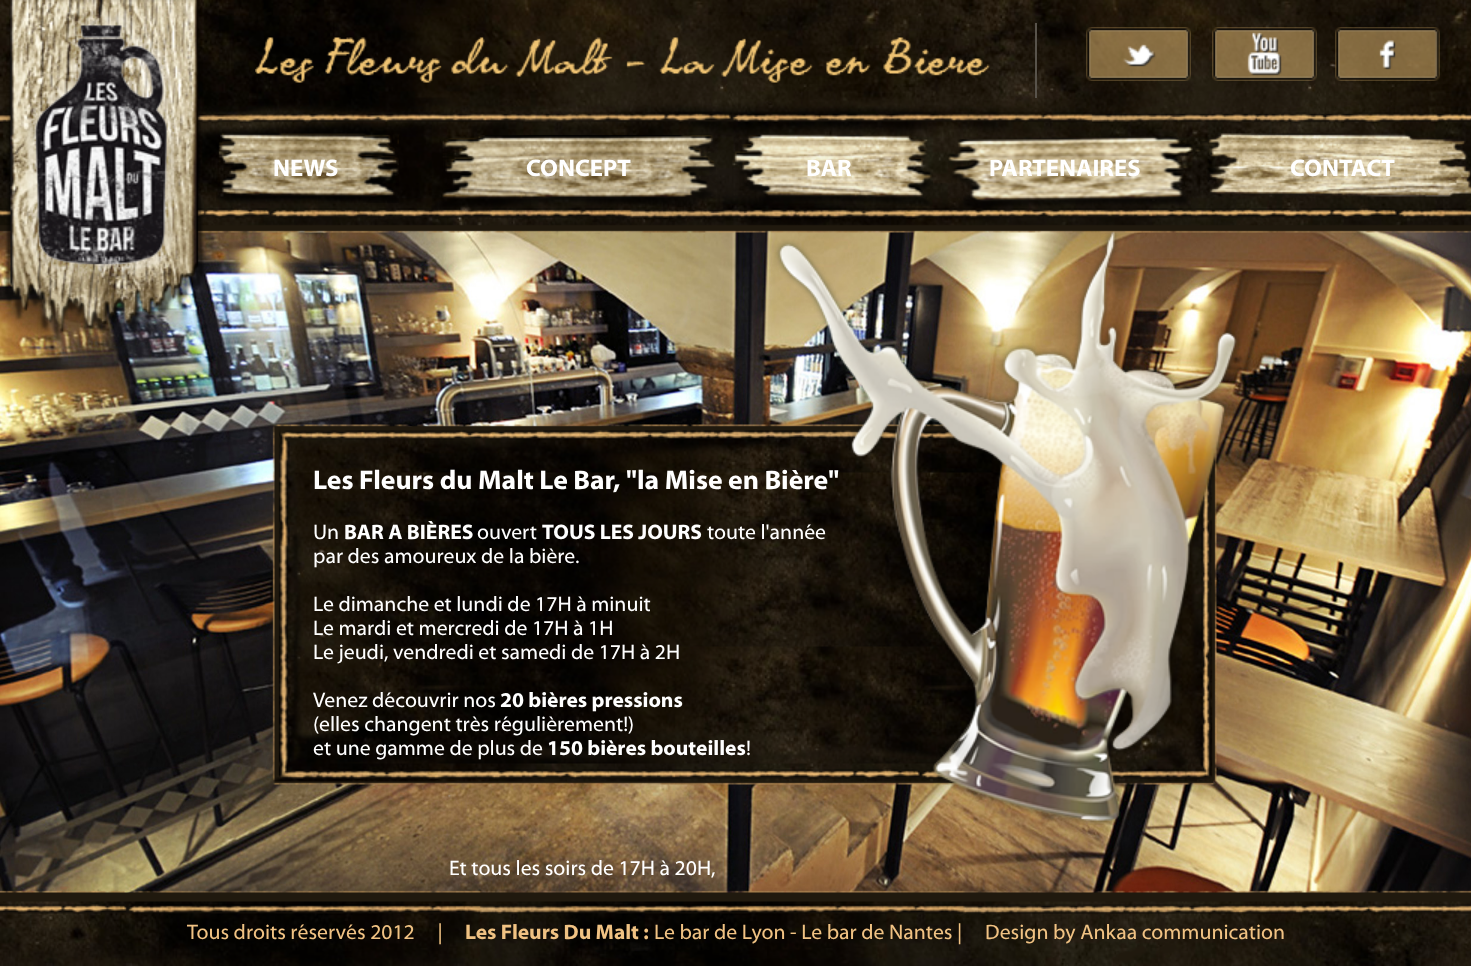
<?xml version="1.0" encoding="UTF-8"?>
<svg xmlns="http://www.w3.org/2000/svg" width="1471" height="966">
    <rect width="100%" height="100%" fill="#FFFFFF"/>
    <image x="0" y="230" width="1471" height="663" href="img_12.png"/>
    <image x="257" y="230" width="982" height="595" href="img_13.png"/>
    <image x="0" y="0" width="1471" height="243" href="img_01.png"/>
    <image x="3" y="0" width="204" height="341" href="img_02.png"/>
    <image x="255" y="37" width="735" height="46" href="img_03.png"/>
    <rect x="1035" y="23" width="2" height="75" fill="#58534B"/>
    <image x="1086" y="27" width="105" height="54" href="img_04.png"/>
    <image x="1212" y="27" width="105" height="54" href="img_05.png"/>
    <image x="1335" y="27" width="105" height="54" href="img_06.png"/>
    <image x="216" y="133" width="183" height="70" href="img_07.png"/>
    <text x="273" y="176" font-family="Myriad" font-size="24" font-weight="700" fill="#FFFFFF">NEWS</text>
    <image x="431" y="135" width="285" height="78" href="img_08.png"/>
    <text x="526" y="176" font-family="Myriad" font-size="24" font-weight="700" fill="#FFFFFF">CONCEPT</text>
    <image x="732" y="134" width="201" height="72" href="img_09.png"/>
    <text x="806" y="176" font-family="Myriad" font-size="24" font-weight="700" fill="#FFFFFF">BAR</text>
    <image x="948" y="136" width="268" height="72" href="img_10.png"/>
    <text x="989" y="176" font-family="Myriad" font-size="24" font-weight="700" fill="#FFFFFF">PARTENAIRES</text>
    <image x="1208" y="133" width="263" height="64" href="img_11.png"/>
    <text x="1290" y="176" font-family="Myriad" font-size="24" font-weight="700" fill="#FFFFFF">CONTACT</text>
    <text x="313" y="489" font-family="Myriad" font-size="27" font-weight="700" fill="#FFFFFF">Les Fleurs du Malt Le Bar, "la Mise en Bière"</text>
    <text x="313" y="539" font-family="Myriad" font-size="21" fill="#FFFFFF">Un</text>
    <text x="344" y="539" font-family="Myriad" font-size="21" font-weight="700" fill="#FFFFFF">BAR A BIÈRES</text>
    <text x="477" y="539" font-family="Myriad" font-size="21" fill="#FFFFFF">ouvert</text>
    <text x="542" y="539" font-family="Myriad" font-size="21" font-weight="700" fill="#FFFFFF">TOUS LES JOURS</text>
    <text x="707" y="539" font-family="Myriad" font-size="21" fill="#FFFFFF">toute l'année</text>
    <text x="313" y="563" font-family="Myriad" font-size="21" fill="#FFFFFF">par des amoureux de la bière.</text>
    <text font-family="Myriad" font-size="21" fill="#FFFFFF">
        <tspan x="313" y="611">Le dimanche et lundi de 17H à minuit</tspan>
        <tspan x="313" y="635">Le mardi et mercredi de 17H à 1H</tspan>
        <tspan x="313" y="659">Le jeudi, vendredi et samedi de 17H à 2H</tspan>
    </text>
    <text x="313" y="707" font-family="Myriad" font-size="21" fill="#FFFFFF">Venez découvrir nos</text>
    <text x="500" y="707" font-family="Myriad" font-size="21" font-weight="700" fill="#FFFFFF">20 bières pressions</text>
    <text font-family="Myriad" font-size="21" fill="#FFFFFF">
        <tspan x="313" y="731">(elles changent très régulièrement!)</tspan>
        <tspan x="313" y="755">et une gamme de plus de</tspan>
    </text>
    <text x="547" y="755" font-family="Myriad" font-size="21" font-weight="700" fill="#FFFFFF">150 bières bouteilles</text>
    <text x="746" y="755" font-family="Myriad" font-size="21" fill="#FFFFFF">!</text>
    <text x="449" y="875" font-family="Myriad" font-size="21" fill="#FFFFFF">Et tous les soirs de 17H à 20H,</text>
    <image x="0" y="886" width="1471" height="80" href="img_14.png"/>
    <text x="187" y="939" font-family="Myriad" font-size="21" fill="#F0C283" xml:space="preserve">Tous droits réservés 2012     |</text>
    <text x="465" y="939" font-family="Myriad" font-size="21" font-weight="700" fill="#F0C283">Les Fleurs Du Malt :</text>
    <text x="654" y="939" font-family="Myriad" font-size="21" fill="#F0C283">Le bar de Lyon - Le bar de Nantes |</text>
    <text x="985" y="939" font-family="Myriad" font-size="21" fill="#F0C283">Design by Ankaa communication</text>
</svg>
